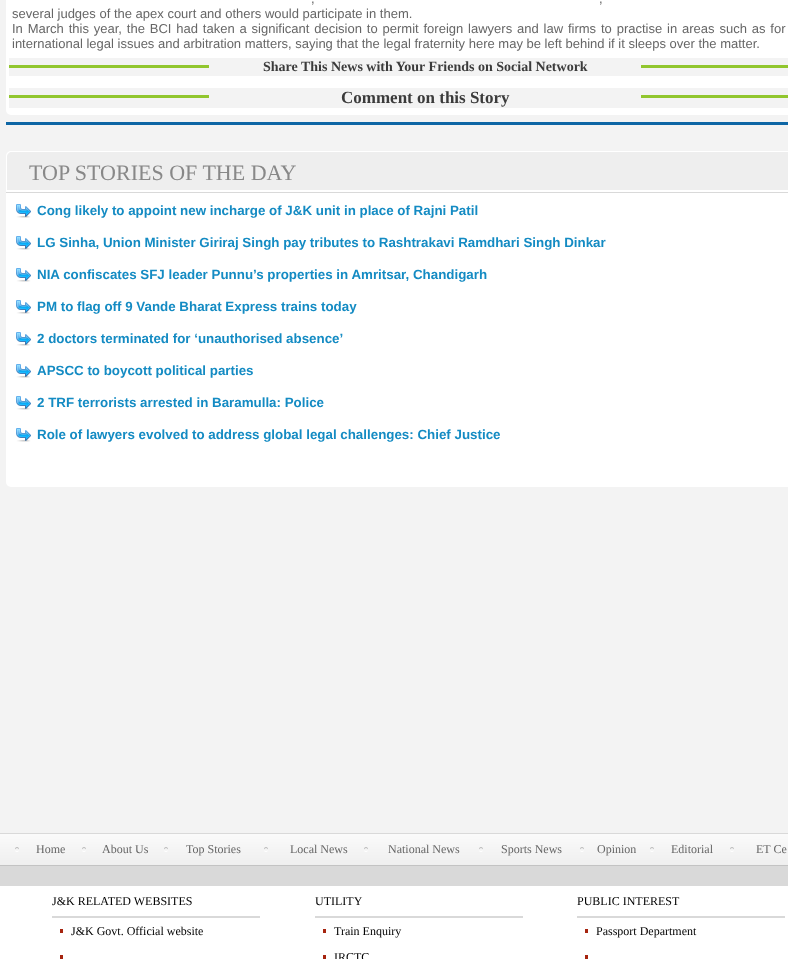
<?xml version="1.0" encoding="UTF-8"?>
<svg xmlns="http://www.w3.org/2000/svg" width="788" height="959">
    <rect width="100%" height="100%" fill="#FFFFFF"/>
    <rect x="0" y="0" width="788" height="833" fill="#F3F3F3"/>
    <rect x="6" y="-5" width="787" height="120" rx="5" fill="#FFFFFF"/>
    <text x="311" y="3" word-spacing="2" font-family="Liberation Sans" font-size="13" fill="#666666">,</text>
    <text x="599" y="3" word-spacing="2" font-family="Liberation Sans" font-size="13" fill="#666666">,</text>
    <text font-family="Liberation Sans" font-size="13" fill="#666666">
        <tspan x="12" y="18">several judges of the apex court and others would participate in them.</tspan>
        <tspan x="12" y="33" word-spacing="1.25">In March this year, the BCI had taken a significant decision to permit foreign lawyers and law firms to practise in areas such as for</tspan>
        <tspan x="12" y="48">international legal issues and arbitration matters, saying that the legal fraternity here may be left behind if it sleeps over the matter.</tspan>
    </text>
    <rect x="9" y="58" width="779" height="18" fill="#F3F3F3"/>
    <rect x="9" y="65" width="200" height="3" fill="#91C62E"/>
    <text x="263" y="71" font-family="Liberation Serif" font-size="14" font-weight="700" fill="#3B3B3B">Share This News with Your Friends on Social Network</text>
    <rect x="641" y="65" width="147" height="3" fill="#91C62E"/>
    <rect x="9" y="88" width="779" height="20" fill="#F3F3F3"/>
    <rect x="9" y="95" width="200" height="3" fill="#91C62E"/>
    <text x="341" y="103" font-family="Liberation Serif" font-size="17" font-weight="700" fill="#3B3B3B">Comment on this Story</text>
    <rect x="641" y="95" width="147" height="3" fill="#91C62E"/>
    <rect x="6" y="122" width="782" height="3" fill="#0E66A5"/>
    <rect x="6" y="151" width="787" height="336" rx="5" fill="#FFFFFF"/>
    <path d="M 12 152 H 788 C 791 152 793 154 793 157 V 190 H 7 V 157 C 7 154 9 152 12 152 Z" fill="#EEEEEE"/>
    <text x="29" y="180" font-family="Liberation Serif" font-size="22" fill="#888888">TOP STORIES OF THE DAY</text>
    <rect x="6" y="192" width="782" height="1" fill="#D9D9D9"/>
    <image x="16" y="204" width="15" height="14" href="img_01.png"/>
    <text x="37" y="215" font-family="Liberation Sans" font-size="13.35" font-weight="700" fill="#148BC3">Cong likely to appoint new incharge of J&amp;K unit in place of Rajni Patil</text>
    <image x="16" y="236" width="15" height="14" href="img_01.png"/>
    <text x="37" y="247" font-family="Liberation Sans" font-size="13.35" font-weight="700" fill="#148BC3">LG Sinha, Union Minister Giriraj Singh pay tributes to Rashtrakavi Ramdhari Singh Dinkar</text>
    <image x="16" y="268" width="15" height="14" href="img_01.png"/>
    <text x="37" y="279" font-family="Liberation Sans" font-size="13.35" font-weight="700" fill="#148BC3">NIA confiscates SFJ leader Punnu’s properties in Amritsar, Chandigarh</text>
    <image x="16" y="300" width="15" height="14" href="img_01.png"/>
    <text x="37" y="311" font-family="Liberation Sans" font-size="13.35" font-weight="700" fill="#148BC3">PM to flag off 9 Vande Bharat Express trains today</text>
    <image x="16" y="332" width="15" height="14" href="img_01.png"/>
    <text x="37" y="343" font-family="Liberation Sans" font-size="13.35" font-weight="700" fill="#148BC3">2 doctors terminated for ‘unauthorised absence’</text>
    <image x="16" y="364" width="15" height="14" href="img_01.png"/>
    <text x="37" y="375" font-family="Liberation Sans" font-size="13.35" font-weight="700" fill="#148BC3">APSCC to boycott political parties</text>
    <image x="16" y="396" width="15" height="14" href="img_01.png"/>
    <text x="37" y="407" font-family="Liberation Sans" font-size="13.35" font-weight="700" fill="#148BC3">2 TRF terrorists arrested in Baramulla: Police</text>
    <image x="16" y="428" width="15" height="14" href="img_01.png"/>
    <text x="37" y="439" font-family="Liberation Sans" font-size="13.35" font-weight="700" fill="#148BC3">Role of lawyers evolved to address global legal challenges: Chief Justice</text>
    <image x="0" y="833" width="788" height="33" href="img_02.png"/>
    <image x="15" y="847" width="4" height="5" href="img_03.png"/>
    <text x="36" y="853" font-family="Liberation Serif" font-size="12" fill="#666666">Home</text>
    <image x="82" y="847" width="4" height="5" href="img_03.png"/>
    <text x="102" y="853" font-family="Liberation Serif" font-size="12" fill="#666666">About Us</text>
    <image x="164" y="847" width="4" height="5" href="img_03.png"/>
    <text x="186" y="853" font-family="Liberation Serif" font-size="12" fill="#666666">Top Stories</text>
    <image x="264" y="847" width="4" height="5" href="img_03.png"/>
    <text x="290" y="853" font-family="Liberation Serif" font-size="12" fill="#666666">Local News</text>
    <image x="364" y="847" width="4" height="5" href="img_03.png"/>
    <text x="388" y="853" font-family="Liberation Serif" font-size="12" fill="#666666">National News</text>
    <image x="479" y="847" width="4" height="5" href="img_03.png"/>
    <text x="501" y="853" font-family="Liberation Serif" font-size="12" fill="#666666">Sports News</text>
    <image x="580" y="847" width="4" height="5" href="img_03.png"/>
    <text x="597" y="853" font-family="Liberation Serif" font-size="12" fill="#666666">Opinion</text>
    <image x="650" y="847" width="4" height="5" href="img_03.png"/>
    <text x="671" y="853" font-family="Liberation Serif" font-size="12" fill="#666666">Editorial</text>
    <image x="730" y="847" width="4" height="5" href="img_03.png"/>
    <text x="756" y="853" font-family="Liberation Serif" font-size="12" fill="#666666">ET Ce</text>
    <rect x="0" y="866" width="788" height="20" fill="#D9D9D9"/>
    <text x="52" y="905" font-family="Liberation Serif" font-size="12" fill="#000000">J&amp;K RELATED WEBSITES</text>
    <rect x="52" y="916" width="208" height="2" fill="#D9D9D9"/>
    <rect x="60" y="929" width="3" height="4" fill="#A6240F"/>
    <text x="71" y="935" font-family="Liberation Serif" font-size="12" fill="#000000">J&amp;K Govt. Official website</text>
    <rect x="60" y="955" width="3" height="4" fill="#A6240F"/>
    <text x="315" y="905" font-family="Liberation Serif" font-size="12" fill="#000000">UTILITY</text>
    <rect x="315" y="916" width="208" height="2" fill="#D9D9D9"/>
    <rect x="323" y="929" width="3" height="4" fill="#A6240F"/>
    <text x="334" y="935" font-family="Liberation Serif" font-size="12" fill="#000000">Train Enquiry</text>
    <rect x="323" y="955" width="3" height="4" fill="#A6240F"/>
    <text x="334" y="961" font-family="Liberation Serif" font-size="12" fill="#000000">IRCTC</text>
    <text x="577" y="905" font-family="Liberation Serif" font-size="12" fill="#000000">PUBLIC INTEREST</text>
    <rect x="577" y="916" width="208" height="2" fill="#D9D9D9"/>
    <rect x="585" y="929" width="3" height="4" fill="#A6240F"/>
    <text x="596" y="935" font-family="Liberation Serif" font-size="12" fill="#000000">Passport Department</text>
    <rect x="585" y="955" width="3" height="4" fill="#A6240F"/>
</svg>
